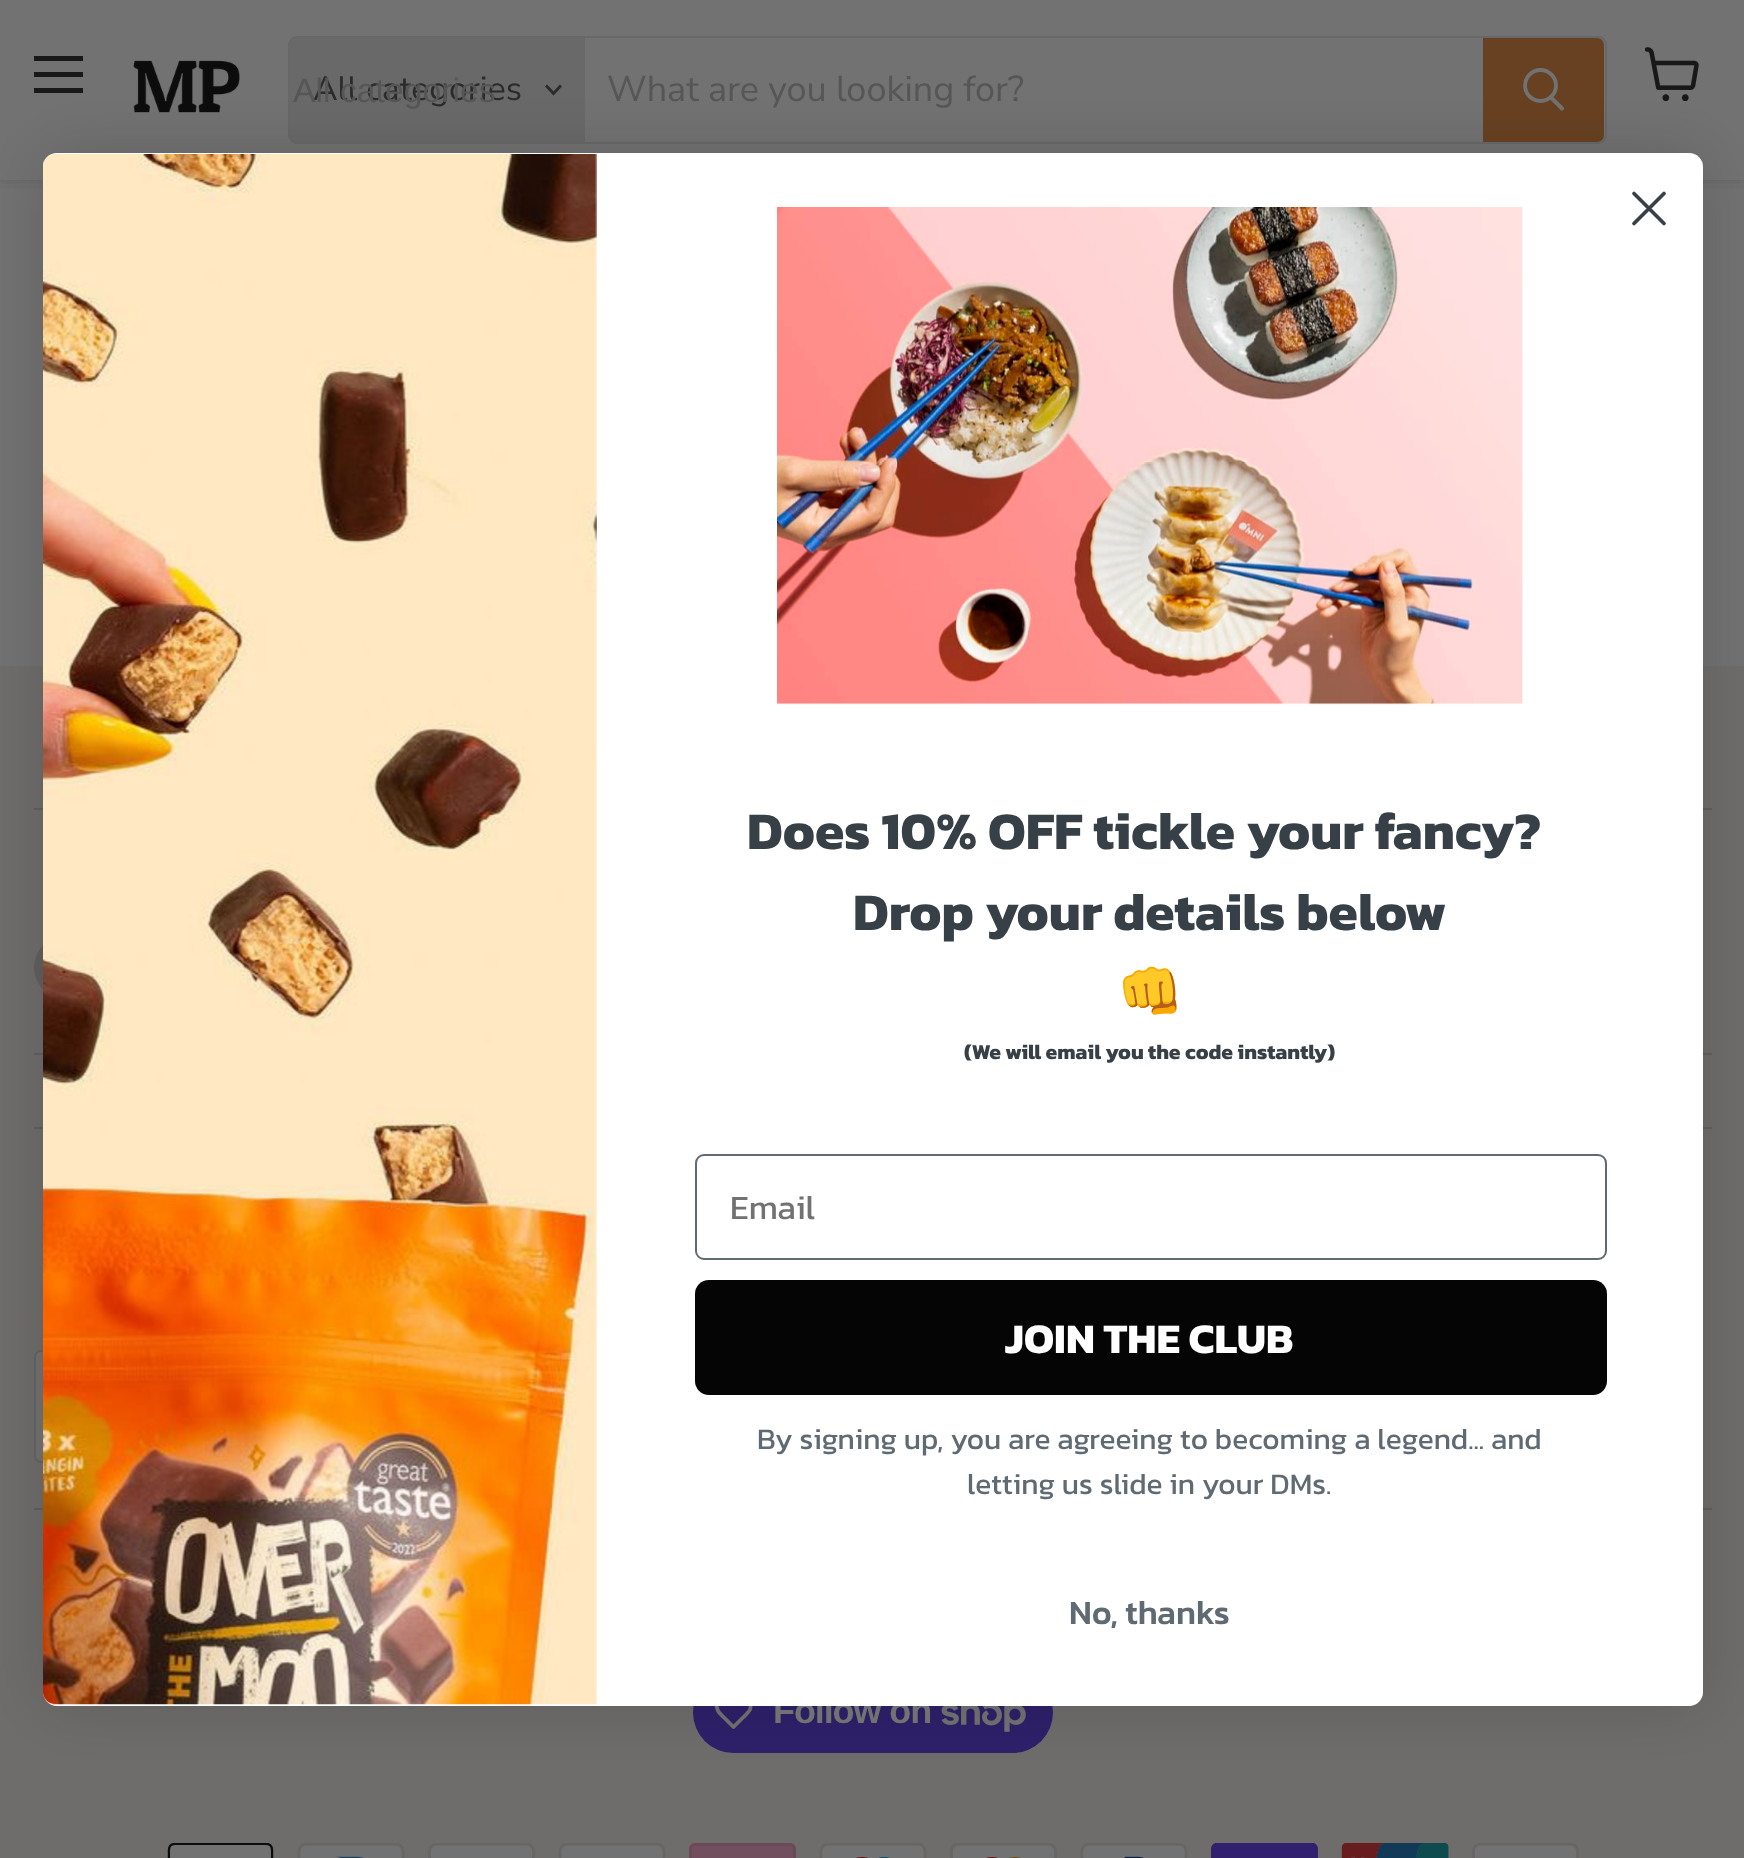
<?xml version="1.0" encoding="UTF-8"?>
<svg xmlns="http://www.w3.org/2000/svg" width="1744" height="1858">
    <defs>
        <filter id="blur1" x="-50%" y="-200%" width="200%" height="500%"><feGaussianBlur stdDeviation="4.5"/></filter>
        <filter id="blur2" x="-50%" y="-200%" width="200%" height="500%"><feGaussianBlur stdDeviation="32"/></filter>
    </defs>
    <rect width="100%" height="100%" fill="#727272"/>
    <rect x="0" y="2" width="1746" height="180" fill="#3F3F3F" fill-opacity="0.25" filter="url(#blur1)"/>
    <rect x="0" y="0" width="1744" height="180" fill="#727272"/>
    <rect x="34" y="56" width="49" height="5" fill="#181818"/>
    <rect x="34" y="72" width="49" height="5" fill="#181818"/>
    <rect x="34" y="88" width="49" height="5" fill="#181818"/>
    <image x="133" y="60" width="107" height="53" href="img_01.png"/>
    <rect x="289" y="37" width="1317" height="106" rx="8" fill="none" stroke="#3F3F3F" stroke-opacity="0.2" stroke-width="2"/>
    <path d="M 297 38 H 585 V 142 H 297 C 293 142 290 139 290 135 V 45 C 290 41 293 38 297 38 Z" fill="#696969"/>
    <text x="313" y="100" font-family="Nunito Sans" font-size="33.75" fill="#2B2B2B">All categories</text>
    <text x="293" y="102" font-family="Liberation Sans" font-size="33.75" fill="#565656">All categories</text>
    <path d="M 553.5 93.5 L 560 86.5 M 553.5 93.5 L 547 86.5" fill="none" stroke="#2B2B2B" stroke-width="2.8" stroke-linecap="square"/>
    <text x="607" y="101" font-family="Nunito Sans" font-size="36" fill="#565656">What are you looking for?</text>
    <path d="M 1484 39 H 1597 C 1600.5 39 1603 41.5 1603 45 V 135 C 1603 138.5 1600.5 141 1597 141 H 1484 Z" fill="#684122" stroke="#684122" stroke-width="2"/>
    <path d="M 1562 108.5 L 1551.5 98" fill="none" stroke="#727272" stroke-width="3.9" stroke-linecap="round"/>
    <circle cx="1540.5" cy="85.5" r="15.5" fill="none" stroke="#727272" stroke-width="3.9"/>
    <image x="1645" y="47" width="54" height="54" href="img_02.png"/>
    <rect x="0" y="666" width="1744" height="1192" fill="#6E6D6B"/>
    <rect x="34" y="808" width="1678" height="2" fill="#61605E"/>
    <rect x="34" y="1053" width="1678" height="2" fill="#61605E"/>
    <circle cx="65.5" cy="967.5" r="31.5" fill="#61605E"/>
    <rect x="34" y="1127" width="1678" height="2" fill="#61605E"/>
    <rect x="34" y="1508" width="1678" height="2" fill="#61605E"/>
    <rect x="35" y="1351" width="549" height="111" rx="6" fill="#727272" stroke="#646464" stroke-width="2"/>
    <rect x="693" y="1672" width="360" height="81" rx="40.5" fill="#2E206A"/>
    <path d="M 731.5 1700 L 733.5 1702 C 735 1700 736.5 1698.5 739 1697.5 C 746 1695.5 752.5 1702.5 750 1709.5 C 748.5 1712.5 745.5 1715 743 1717.5 L 733.5 1727 L 724 1717.5 C 721.5 1715 718.5 1713 717.5 1709.5 C 713.5 1700.5 725 1693 731.5 1700 Z" fill="none" stroke="#727272" stroke-width="3.8" stroke-linejoin="round"/>
    <image x="941" y="1706" width="85" height="26" href="img_05.png"/>
    <rect x="43" y="153" width="1660" height="1553" rx="14" fill="#000000" fill-opacity="0.15" filter="url(#blur2)"/>
    <text x="773" y="1723" font-family="Liberation Sans" font-size="36" font-weight="700" letter-spacing="-1.1" fill="#727272">Follow on</text>
    <rect x="43" y="153" width="1660" height="1553" rx="14" fill="#FFFFFF"/>
    <path d="M 1634 193.5 L 1664 223.5 M 1634 223.5 L 1664 193.5 Z" fill="none" stroke="#373F47" stroke-width="3.7" stroke-linecap="round" stroke-linejoin="round"/>
    <image x="43" y="154" width="554" height="1551" href="img_03.png"/>
    <image x="777" y="207" width="746" height="498" href="img_04.png"/>
    <text x="747" y="849" font-family="Kanit" font-size="53.25" font-weight="700" fill="#373F47">Does 10% OFF tickle your fancy?</text>
    <text x="853" y="930" font-family="Kanit" font-size="53.25" font-weight="700" fill="#373F47">Drop your details below</text>
    <text x="1117" y="1010" font-family="Noto Color Emoji" font-size="53.25" font-weight="700" fill="#373F47">👊</text>
    <text x="964" y="1059" font-family="Kanit" font-size="21.25" font-weight="700" fill="#373F47">(We will email you the code instantly)</text>
    <rect x="696" y="1155" width="910" height="104" rx="8" fill="none" stroke="#606A72" stroke-width="2"/>
    <text x="730" y="1219" font-family="Kanit" font-size="34" fill="#727272">Email</text>
    <rect x="695" y="1280" width="912" height="115" rx="14" fill="#050505"/>
    <text x="1005" y="1353" font-family="Kanit" font-size="42.5" font-weight="700" fill="#FFFFFF">JOIN THE CLUB</text>
    <text x="757" y="1449" font-family="Kanit" font-size="29.8" fill="#606A72">By signing up, you are agreeing to becoming a legend... and</text>
    <text x="967" y="1494" font-family="Kanit" font-size="29.8" fill="#606A72">letting us slide in your DMs.</text>
    <text x="1069" y="1624" font-family="Kanit" font-size="34" font-weight="500" fill="#606A72">No, thanks</text>
    <image x="167" y="1843" width="107" height="15" href="img_06.png"/>
    <image x="297" y="1843" width="108" height="15" href="img_07.png"/>
    <image x="428" y="1843" width="107" height="15" href="img_08.png"/>
    <image x="558" y="1843" width="108" height="15" href="img_09.png"/>
    <image x="689" y="1843" width="107" height="15" href="img_10.png"/>
    <image x="819" y="1843" width="108" height="15" href="img_11.png"/>
    <image x="950" y="1843" width="107" height="15" href="img_12.png"/>
    <image x="1080" y="1843" width="108" height="15" href="img_13.png"/>
    <image x="1211" y="1843" width="107" height="15" href="img_14.png"/>
    <image x="1341" y="1843" width="108" height="15" href="img_15.png"/>
    <image x="1472" y="1843" width="107" height="15" href="img_08.png"/>
</svg>
